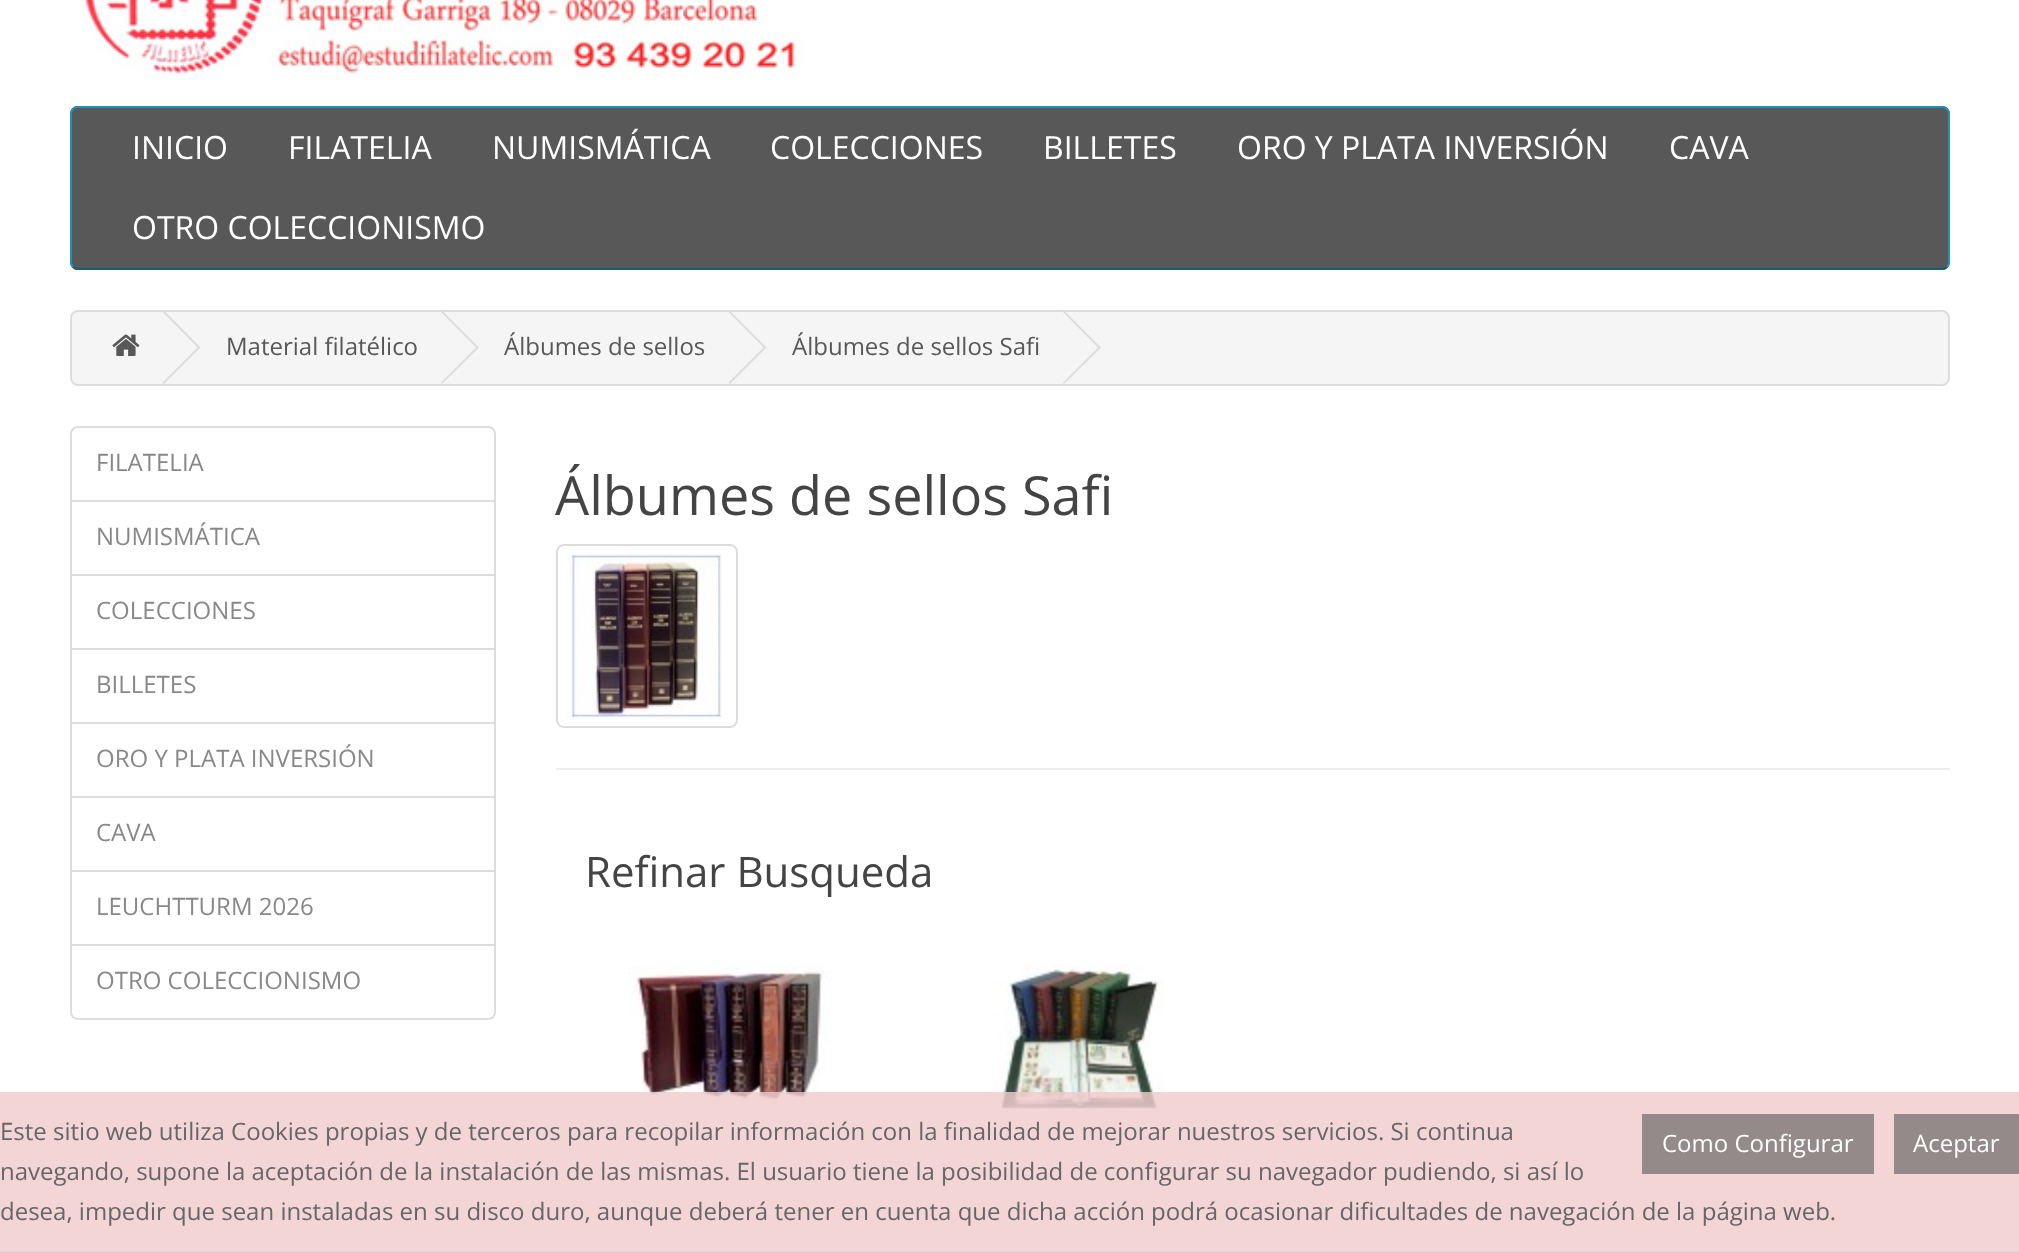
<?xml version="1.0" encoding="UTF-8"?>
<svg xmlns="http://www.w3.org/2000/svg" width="2019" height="1253">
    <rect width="100%" height="100%" fill="#FFFFFF"/>
    <image x="83" y="0" width="721" height="80" href="img_01.png"/>
    <rect x="70" y="106" width="1880" height="164" rx="8" fill="#585858"/>
    <path d="M 1947 267 C 1945.5 268.5 1944 269 1942 269 H 78 C 76 269 74.5 268.5 73 267" fill="none" stroke="#145E7A" stroke-width="2"/>
    <path d="M 73 267 C 71.5 265.5 71 264 71 262 V 114 C 71 112 71.5 110.5 73 109 C 74.5 107.5 76 107 78 107 H 1942 C 1944 107 1945.5 107.5 1947 109 C 1948.5 110.5 1949 112 1949 114 V 262 C 1949 264 1948.5 265.5 1947 267" fill="none" stroke="#1F90BB" stroke-width="2"/>
    <text x="132" y="159" font-family="Open Sans" font-size="32" fill="#FFFFFF">INICIO</text>
    <text x="288" y="159" font-family="Open Sans" font-size="32" fill="#FFFFFF">FILATELIA</text>
    <text x="492" y="159" font-family="Open Sans" font-size="32" fill="#FFFFFF">NUMISMÁTICA</text>
    <text x="770" y="159" font-family="Open Sans" font-size="32" fill="#FFFFFF">COLECCIONES</text>
    <text x="1043" y="159" font-family="Open Sans" font-size="32" fill="#FFFFFF">BILLETES</text>
    <text x="1237" y="159" font-family="Open Sans" font-size="32" fill="#FFFFFF">ORO Y PLATA INVERSIÓN</text>
    <text x="1669" y="159" font-family="Open Sans" font-size="32" fill="#FFFFFF">CAVA</text>
    <text x="132" y="239" font-family="Open Sans" font-size="32" fill="#FFFFFF">OTRO COLECCIONISMO</text>
    <rect x="71" y="311" width="1878" height="74" rx="7" fill="#F5F5F5" stroke="#DDDDDD" stroke-width="2"/>
    <image x="112" y="334" width="28" height="22" href="img_02.png"/>
    <path d="M 162.5 312 L 164 310.5 L 200.5 347.5 L 199 349 Z" fill="#DDDDDD"/>
    <path d="M 162.5 382.5 L 199 346 L 200.5 347.5 L 164 384 Z" fill="#DDDDDD"/>
    <text x="226" y="355" font-family="Open Sans" font-size="24" fill="#585858">Material filatélico</text>
    <path d="M 441 312 L 442 310.5 L 479 347.5 L 477.5 349 Z" fill="#DDDDDD"/>
    <path d="M 441 382.5 L 477.5 346 L 479 347.5 L 442 384 Z" fill="#DDDDDD"/>
    <text x="504" y="355" font-family="Open Sans" font-size="24" fill="#585858">Álbumes de sellos</text>
    <path d="M 728.5 312 L 729.5 310.5 L 766.5 347.5 L 765 349 Z" fill="#DDDDDD"/>
    <path d="M 728.5 382.5 L 765 346 L 766.5 347.5 L 730 384 Z" fill="#DDDDDD"/>
    <text x="792" y="355" font-family="Open Sans" font-size="24" fill="#585858">Álbumes de sellos Safi</text>
    <path d="M 1063 312 L 1064 310.5 L 1101 347.5 L 1099.5 349 Z" fill="#DDDDDD"/>
    <path d="M 1063 382.5 L 1099.5 346 L 1101 347.5 L 1064 384 Z" fill="#DDDDDD"/>
    <path d="M 78 427 H 488 C 492 427 495 430 495 434 V 501 H 71 V 434 C 71 430 74 427 78 427 Z" fill="none" stroke="#DDDDDD" stroke-width="2"/>
    <text x="96" y="471" font-family="Open Sans" font-size="24" fill="#888888">FILATELIA</text>
    <rect x="71" y="501" width="424" height="74" fill="none" stroke="#DDDDDD" stroke-width="2"/>
    <text x="96" y="545" font-family="Open Sans" font-size="24" fill="#888888">NUMISMÁTICA</text>
    <rect x="71" y="575" width="424" height="74" fill="none" stroke="#DDDDDD" stroke-width="2"/>
    <text x="96" y="619" font-family="Open Sans" font-size="24" fill="#888888">COLECCIONES</text>
    <rect x="71" y="649" width="424" height="74" fill="none" stroke="#DDDDDD" stroke-width="2"/>
    <text x="96" y="693" font-family="Open Sans" font-size="24" fill="#888888">BILLETES</text>
    <rect x="71" y="723" width="424" height="74" fill="none" stroke="#DDDDDD" stroke-width="2"/>
    <text x="96" y="767" font-family="Open Sans" font-size="24" fill="#888888">ORO Y PLATA INVERSIÓN</text>
    <rect x="71" y="797" width="424" height="74" fill="none" stroke="#DDDDDD" stroke-width="2"/>
    <text x="96" y="841" font-family="Open Sans" font-size="24" fill="#888888">CAVA</text>
    <rect x="71" y="871" width="424" height="74" fill="none" stroke="#DDDDDD" stroke-width="2"/>
    <text x="96" y="915" font-family="Open Sans" font-size="24" fill="#888888">LEUCHTTURM 2026</text>
    <path d="M 71 945 H 495 V 1012 C 495 1016 492 1019 488 1019 H 78 C 74 1019 71 1016 71 1012 Z" fill="#FFFFFF" stroke="#DDDDDD" stroke-width="2"/>
    <text x="96" y="989" font-family="Open Sans" font-size="24" fill="#888888">OTRO COLECCIONISMO</text>
    <text x="555" y="515" font-family="Open Sans" font-size="54" fill="#444444">Álbumes de sellos Safi</text>
    <rect x="557" y="545" width="180" height="182" rx="7" fill="none" stroke="#DDDDDD" stroke-width="2"/>
    <image x="566" y="554" width="156" height="164" href="img_03.png"/>
    <rect x="556" y="768" width="1394" height="2" fill="#EEEEEE"/>
    <text x="585" y="887" font-family="Open Sans" font-size="42" fill="#444444">Refinar Busqueda</text>
    <image x="628" y="964" width="204" height="144" href="img_04.png"/>
    <image x="992" y="964" width="172" height="146" href="img_05.png"/>
    <rect x="0" y="1092" width="2019" height="160" fill="#F0CCCC" fill-opacity="0.82"/>
    <rect x="0" y="1252" width="2019" height="1" fill="#D0C8C8"/>
    <text x="0" y="1140" font-family="Open Sans" font-size="24" fill="#666666">Este sitio web utiliza Cookies propias y de terceros para recopilar información con la finalidad de mejorar nuestros servicios. Si continua</text>
    <rect x="1642" y="1114" width="232" height="60" fill="#948A8A"/>
    <text x="1662" y="1152" font-family="Open Sans" font-size="24" fill="#FFFFFF">Como Configurar</text>
    <rect x="1894" y="1114" width="125" height="60" fill="#948A8A"/>
    <text x="1913" y="1152" font-family="Open Sans" font-size="24" fill="#FFFFFF">Aceptar</text>
    <text font-family="Open Sans" font-size="24" fill="#666666">
        <tspan x="0" y="1180">navegando, supone la aceptación de la instalación de las mismas. El usuario tiene la posibilidad de configurar su navegador pudiendo, si así lo</tspan>
        <tspan x="0" y="1220">desea, impedir que sean instaladas en su disco duro, aunque deberá tener en cuenta que dicha acción podrá ocasionar dificultades de navegación de la página web.</tspan>
    </text>
</svg>
